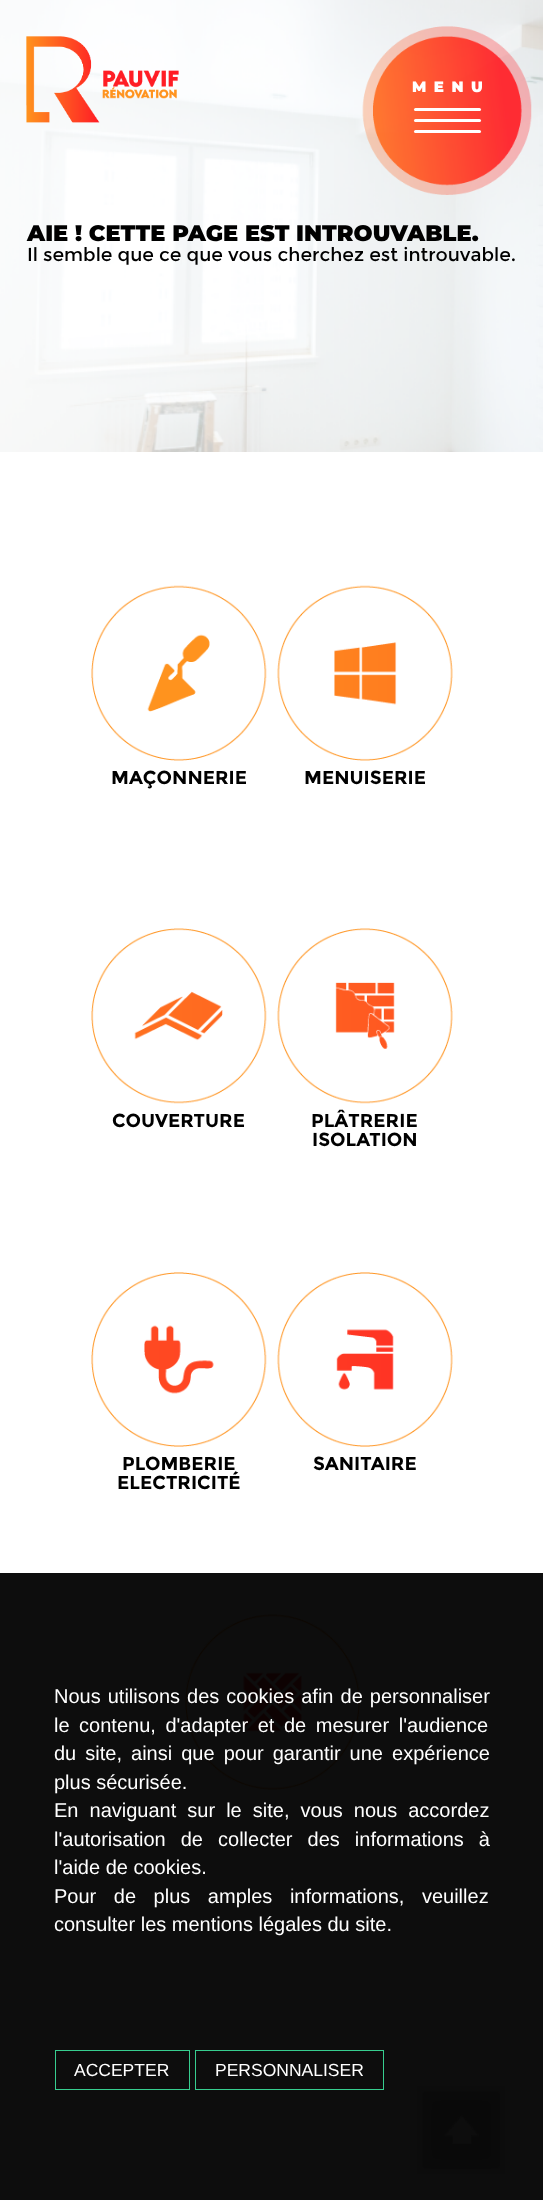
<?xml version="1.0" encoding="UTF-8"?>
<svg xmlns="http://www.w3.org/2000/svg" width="543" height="2200">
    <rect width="100%" height="100%" fill="#FFFFFF"/>
    <rect x="0" y="1573" width="543" height="627" fill="#0D0D0D"/>
    <image x="0" y="0" width="543" height="452" href="img_03.png"/>
    <image x="26" y="36" width="153" height="87" href="img_01.png"/>
    <image x="362" y="26" width="170" height="169" href="img_02.png"/>
    <text x="412" y="92" font-family="Montserrat" font-size="15" font-weight="900" letter-spacing="7.5" fill="#FFFFFF">MENU</text>
    <rect x="414" y="108" width="67" height="3" rx="1.5" fill="#FFFFFF"/>
    <rect x="414" y="119" width="67" height="3" rx="1.5" fill="#FFFFFF"/>
    <rect x="414" y="130" width="67" height="3" rx="1.5" fill="#FFFFFF"/>
    <text x="27" y="241" font-family="Montserrat" font-size="22.5" font-weight="900" fill="#000000">AIE ! CETTE PAGE EST INTROUVABLE.</text>
    <text x="27" y="261" font-family="Montserrat" font-size="18.75" fill="#000000">Il semble que ce que vous cherchez est introuvable.</text>
    <image x="91" y="585" width="176" height="176" href="img_04.png"/>
    <text x="111" y="784" font-family="Montserrat" font-size="18.75" font-weight="700" fill="#000000">MAÇONNERIE</text>
    <image x="277" y="585" width="176" height="176" href="img_05.png"/>
    <text x="304" y="784" font-family="Montserrat" font-size="18.75" font-weight="700" fill="#000000">MENUISERIE</text>
    <image x="91" y="928" width="176" height="176" href="img_06.png"/>
    <text x="112" y="1127" font-family="Montserrat" font-size="18.75" font-weight="700" fill="#000000">COUVERTURE</text>
    <image x="277" y="928" width="176" height="176" href="img_07.png"/>
    <text x="311" y="1127" font-family="Montserrat" font-size="18.75" font-weight="700" fill="#000000">PLÂTRERIE</text>
    <text x="312" y="1146" font-family="Montserrat" font-size="18.75" font-weight="700" fill="#000000">ISOLATION</text>
    <image x="91" y="1272" width="176" height="175" href="img_08.png"/>
    <text x="122" y="1470" font-family="Montserrat" font-size="18.75" font-weight="700" fill="#000000">PLOMBERIE</text>
    <text x="117" y="1489" font-family="Montserrat" font-size="18.75" font-weight="700" fill="#000000">ELECTRICITÉ</text>
    <image x="277" y="1272" width="176" height="175" href="img_09.png"/>
    <text x="313" y="1470" font-family="Montserrat" font-size="18.75" font-weight="700" fill="#000000">SANITAIRE</text>
    <image x="185" y="1614" width="175" height="176" href="img_10.png"/>
    <text font-family="Liberation Sans" font-size="20" fill="#FFFFFF">
        <tspan x="54" y="1703" word-spacing="1.5">Nous utilisons des cookies afin de personnaliser</tspan>
        <tspan x="54" y="1732" word-spacing="4">le contenu, d'adapter et de mesurer l'audience</tspan>
        <tspan x="54" y="1760" word-spacing="3.5">du site, ainsi que pour garantir une expérience</tspan>
        <tspan x="54" y="1789">plus sécurisée.</tspan>
        <tspan x="54" y="1817" word-spacing="5.5">En naviguant sur le site, vous nous accordez</tspan>
        <tspan x="54" y="1846" word-spacing="9.5">l'autorisation de collecter des informations à</tspan>
        <tspan x="54" y="1874">l'aide de cookies.</tspan>
        <tspan x="54" y="1903" word-spacing="12">Pour de plus amples informations, veuillez</tspan>
        <tspan x="54" y="1931">consulter les mentions légales du site.</tspan>
    </text>
    <rect x="55.5" y="2050.5" width="134" height="39" fill="none" stroke="#37CD8F"/>
    <text x="74" y="2076" font-family="Liberation Sans" font-size="17.5" fill="#FFFFFF">ACCEPTER</text>
    <rect x="195.5" y="2050.5" width="188" height="39" fill="none" stroke="#37CD8F"/>
    <text x="215" y="2076" font-family="Liberation Sans" font-size="17.5" fill="#FFFFFF">PERSONNALISER</text>
    <image x="417" y="2086" width="88" height="88" href="img_11.png"/>
</svg>
